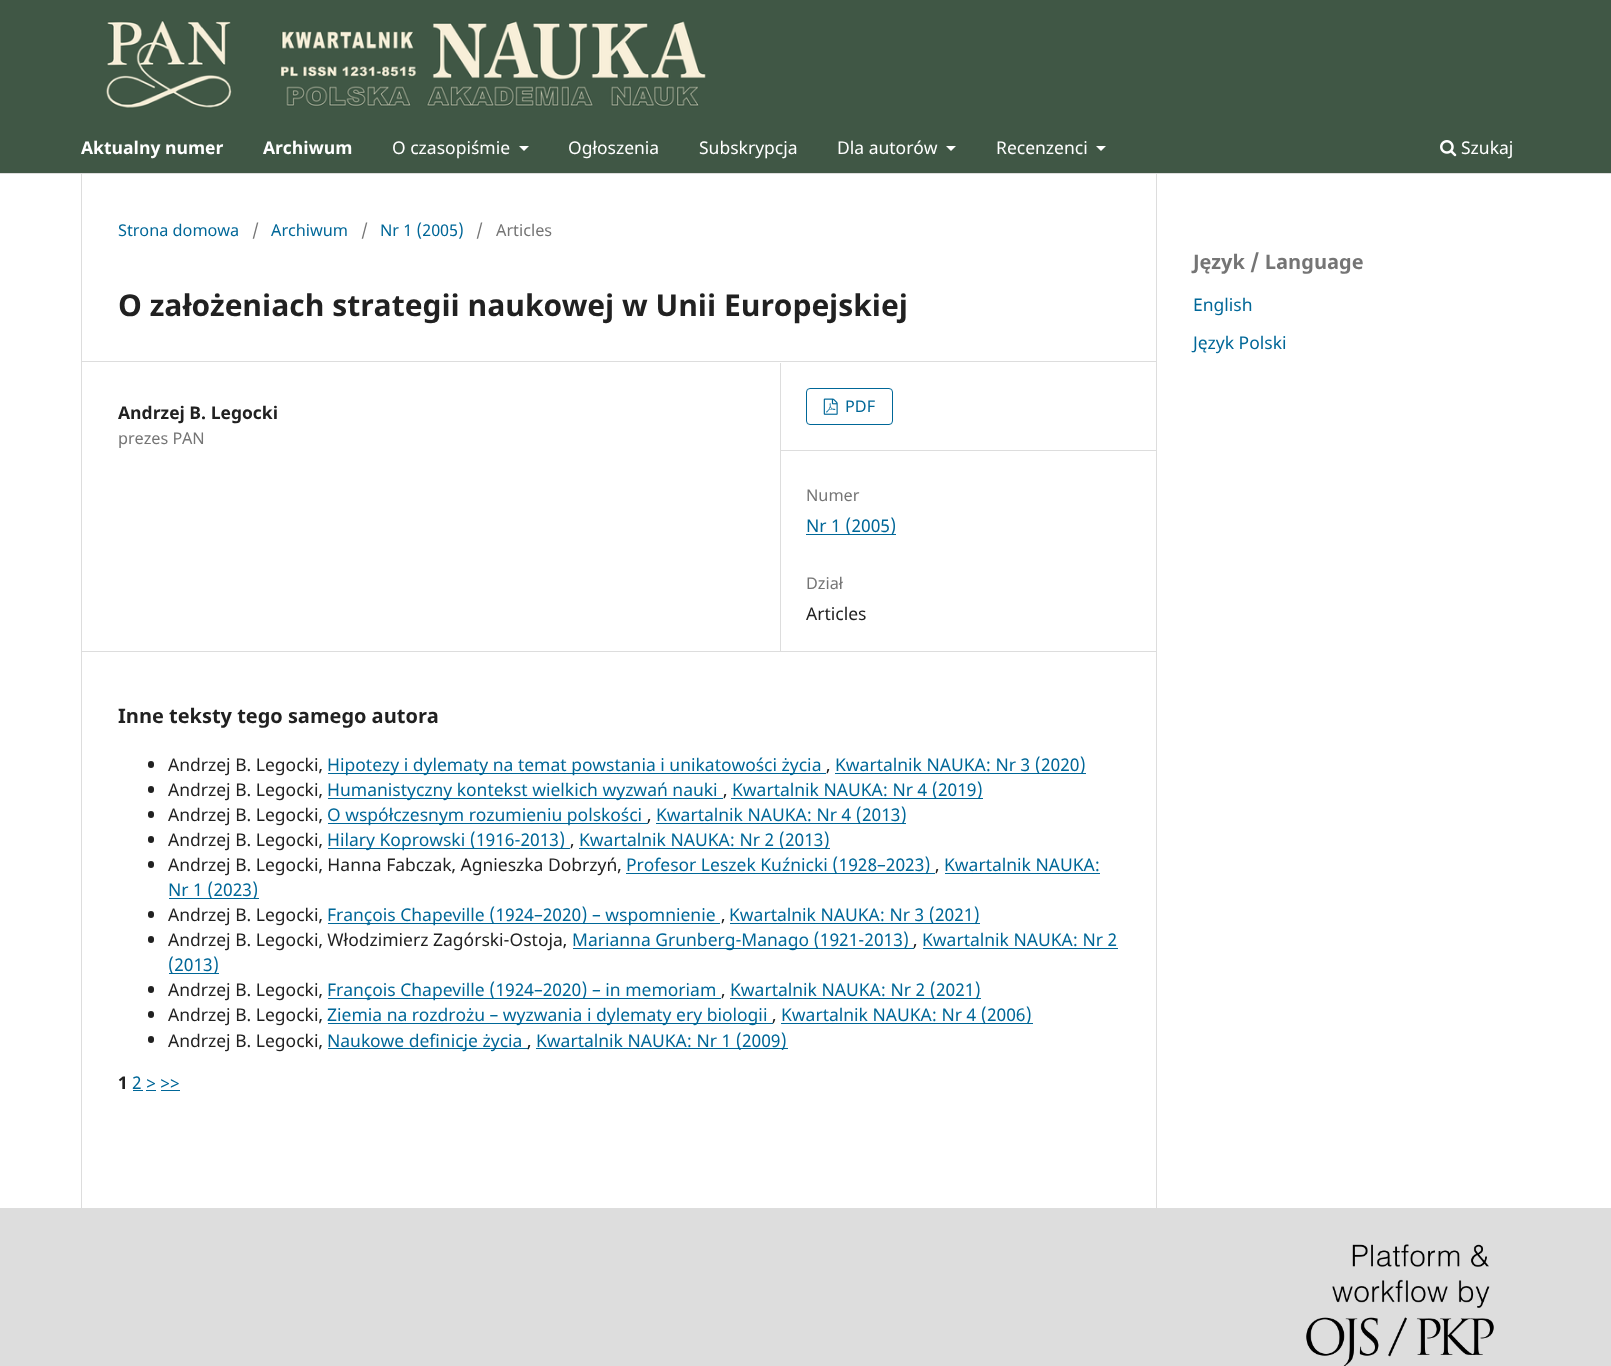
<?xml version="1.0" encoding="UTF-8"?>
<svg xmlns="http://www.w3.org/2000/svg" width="1611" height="1366">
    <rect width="100%" height="100%" fill="#FFFFFF"/>
    <rect x="0" y="0" width="1611" height="173" fill="#405745"/>
    <rect x="0" y="173" width="1611" height="1" fill="#DDDDDD"/>
    <image x="106" y="20" width="600" height="89" href="img_01.png"/>
    <text x="81" y="154" font-family="Noto Sans" font-size="17.5" font-weight="700" fill="#FFFFFF">Aktualny numer</text>
    <text x="263" y="154" font-family="Noto Sans" font-size="17.5" font-weight="700" fill="#FFFFFF">Archiwum</text>
    <text x="392" y="154" font-family="Noto Sans" font-size="17.5" fill="#FFFFFF">O czasopiśmie</text>
    <path d="M 519 146 H 529 L 524 151 Z" fill="#FFFFFF"/>
    <text x="568" y="154" font-family="Noto Sans" font-size="17.5" fill="#FFFFFF">Ogłoszenia</text>
    <text x="699" y="154" font-family="Noto Sans" font-size="17.5" fill="#FFFFFF">Subskrypcja</text>
    <text x="837" y="154" font-family="Noto Sans" font-size="17.5" fill="#FFFFFF">Dla autorów</text>
    <path d="M 946 146 H 956 L 951 151 Z" fill="#FFFFFF"/>
    <text x="996" y="154" font-family="Noto Sans" font-size="17.5" fill="#FFFFFF">Recenzenci</text>
    <path d="M 1096 146 H 1106 L 1101 151 Z" fill="#FFFFFF"/>
    <image x="1440" y="140" width="17" height="17" href="img_02.png"/>
    <text x="1461" y="154" font-family="Noto Sans" font-size="17.5" fill="#FFFFFF">Szukaj</text>
    <rect x="81" y="361" width="1075" height="1" fill="#DDDDDD"/>
    <rect x="81" y="651" width="1075" height="1" fill="#DDDDDD"/>
    <rect x="81" y="174" width="1" height="1034" fill="#DDDDDD"/>
    <text x="118" y="236" font-family="Noto Sans" font-size="16.25" fill="#006798">Strona domowa</text>
    <text x="252" y="236" font-family="Noto Sans" font-size="16.25" fill="#757575">/</text>
    <text x="271" y="236" font-family="Noto Sans" font-size="16.25" fill="#006798">Archiwum</text>
    <text x="361" y="236" font-family="Noto Sans" font-size="16.25" fill="#757575">/</text>
    <text x="380" y="236" font-family="Noto Sans" font-size="16.25" fill="#006798">Nr 1 (2005)</text>
    <text x="476" y="236" font-family="Noto Sans" font-size="16.25" fill="#757575">/</text>
    <text x="496" y="236" font-family="Noto Sans" font-size="16.25" fill="#757575">Articles</text>
    <text x="118" y="316" font-family="Noto Sans" font-size="30" font-weight="700" fill="#212121">O założeniach strategii naukowej w Unii Europejskiej</text>
    <text x="118" y="419" font-family="Noto Sans" font-size="17.5" font-weight="700" fill="#212121">Andrzej B. Legocki</text>
    <text x="118" y="444" font-family="Noto Sans" font-size="16.25" fill="#757575">prezes PAN</text>
    <rect x="780" y="363" width="1" height="288" fill="#DDDDDD"/>
    <rect x="781" y="450" width="375" height="1" fill="#DDDDDD"/>
    <rect x="806.5" y="388.5" width="86" height="36" rx="3.5" fill="none" stroke="#006798"/>
    <image x="823" y="398" width="15" height="17" href="img_03.png"/>
    <text x="845" y="412" font-family="Noto Sans" font-size="16.25" fill="#006798">PDF</text>
    <text x="806" y="501" font-family="Noto Sans" font-size="16.25" fill="#757575">Numer</text>
    <rect x="806" y="534" width="90" height="1" fill="#006798"/>
    <text x="806" y="532" font-family="Noto Sans" font-size="17.5" fill="#006798">Nr 1 (2005)</text>
    <text x="806" y="589" font-family="Noto Sans" font-size="16.25" fill="#757575">Dział</text>
    <text x="806" y="620" font-family="Noto Sans" font-size="17.5" fill="#212121">Articles</text>
    <text x="118" y="723" font-family="Noto Sans" font-size="20" font-weight="700" fill="#212121">Inne teksty tego samego autora</text>
    <rect x="148" y="761" width="6" height="7" rx="3" fill="#212121"/>
    <text x="168" y="771" font-family="Noto Sans" font-size="17.5" fill="#212121">Andrzej B. Legocki,</text>
    <rect x="328" y="773" width="498" height="1" fill="#006798"/>
    <text x="327" y="771" font-family="Noto Sans" font-size="17.5" fill="#006798">Hipotezy i dylematy na temat powstania i unikatowości życia</text>
    <rect x="835" y="773" width="251" height="1" fill="#006798"/>
    <text x="835" y="771" font-family="Noto Sans" font-size="17.5" fill="#006798">Kwartalnik NAUKA: Nr 3 (2020)</text>
    <text x="826" y="771" font-family="Noto Sans" font-size="17.5" fill="#212121">,</text>
    <rect x="148" y="786" width="6" height="7" rx="3" fill="#212121"/>
    <text x="168" y="796" font-family="Noto Sans" font-size="17.5" fill="#212121">Andrzej B. Legocki,</text>
    <rect x="328" y="798" width="395" height="1" fill="#006798"/>
    <text x="327" y="796" font-family="Noto Sans" font-size="17.5" fill="#006798">Humanistyczny kontekst wielkich wyzwań nauki</text>
    <rect x="731" y="798" width="252" height="1" fill="#006798"/>
    <text x="732" y="796" font-family="Noto Sans" font-size="17.5" fill="#006798">Kwartalnik NAUKA: Nr 4 (2019)</text>
    <text x="723" y="796" font-family="Noto Sans" font-size="17.5" fill="#212121">,</text>
    <rect x="148" y="811" width="6" height="7" rx="3" fill="#212121"/>
    <text x="168" y="821" font-family="Noto Sans" font-size="17.5" fill="#212121">Andrzej B. Legocki,</text>
    <rect x="328" y="823" width="320" height="1" fill="#006798"/>
    <text x="327" y="821" font-family="Noto Sans" font-size="17.5" fill="#006798">O współczesnym rozumieniu polskości</text>
    <rect x="656" y="823" width="250" height="1" fill="#006798"/>
    <text x="656" y="821" font-family="Noto Sans" font-size="17.5" fill="#006798">Kwartalnik NAUKA: Nr 4 (2013)</text>
    <text x="647" y="821" font-family="Noto Sans" font-size="17.5" fill="#212121">,</text>
    <rect x="148" y="836" width="6" height="7" rx="3" fill="#212121"/>
    <text x="168" y="846" font-family="Noto Sans" font-size="17.5" fill="#212121">Andrzej B. Legocki,</text>
    <rect x="328" y="848" width="242" height="1" fill="#006798"/>
    <text x="327" y="846" font-family="Noto Sans" font-size="17.5" fill="#006798">Hilary Koprowski (1916-2013)</text>
    <rect x="579" y="848" width="251" height="1" fill="#006798"/>
    <text x="579" y="846" font-family="Noto Sans" font-size="17.5" fill="#006798">Kwartalnik NAUKA: Nr 2 (2013)</text>
    <text x="570" y="846" font-family="Noto Sans" font-size="17.5" fill="#212121">,</text>
    <rect x="148" y="861" width="6" height="7" rx="3" fill="#212121"/>
    <text x="168" y="871" font-family="Noto Sans" font-size="17.5" fill="#212121">Andrzej B. Legocki, Hanna Fabczak, Agnieszka Dobrzyń,</text>
    <rect x="626" y="873" width="309" height="1" fill="#006798"/>
    <text x="626" y="871" font-family="Noto Sans" font-size="17.5" fill="#006798">Profesor Leszek Kuźnicki (1928–2023)</text>
    <text x="944" y="871" font-family="Noto Sans" font-size="17.5" fill="#006798">Kwartalnik NAUKA:</text>
    <rect x="945" y="873" width="155" height="1" fill="#006798"/>
    <text x="935" y="871" font-family="Noto Sans" font-size="17.5" fill="#212121">,</text>
    <rect x="169" y="898" width="90" height="1" fill="#006798"/>
    <text x="168" y="896" font-family="Noto Sans" font-size="17.5" fill="#006798">Nr 1 (2023)</text>
    <rect x="148" y="911" width="6" height="7" rx="3" fill="#212121"/>
    <text x="168" y="921" font-family="Noto Sans" font-size="17.5" fill="#212121">Andrzej B. Legocki,</text>
    <rect x="328" y="923" width="392" height="1" fill="#006798"/>
    <text x="327" y="921" font-family="Noto Sans" font-size="17.5" fill="#006798">François Chapeville (1924–2020) – wspomnienie</text>
    <rect x="730" y="923" width="250" height="1" fill="#006798"/>
    <text x="729" y="921" font-family="Noto Sans" font-size="17.5" fill="#006798">Kwartalnik NAUKA: Nr 3 (2021)</text>
    <text x="721" y="921" font-family="Noto Sans" font-size="17.5" fill="#212121">,</text>
    <rect x="148" y="936" width="6" height="7" rx="3" fill="#212121"/>
    <text x="168" y="946" font-family="Noto Sans" font-size="17.5" fill="#212121">Andrzej B. Legocki, Włodzimierz Zagórski-Ostoja,</text>
    <rect x="573" y="948" width="341" height="1" fill="#006798"/>
    <text x="572" y="946" font-family="Noto Sans" font-size="17.5" fill="#006798">Marianna Grunberg-Manago (1921-2013)</text>
    <text x="922" y="946" font-family="Noto Sans" font-size="17.5" fill="#006798">Kwartalnik NAUKA: Nr 2</text>
    <rect x="923" y="948" width="195" height="1" fill="#006798"/>
    <text x="913" y="946" font-family="Noto Sans" font-size="17.5" fill="#212121">,</text>
    <rect x="169" y="973" width="50" height="1" fill="#006798"/>
    <text x="168" y="971" font-family="Noto Sans" font-size="17.5" fill="#006798">(2013)</text>
    <rect x="148" y="986" width="6" height="7" rx="3" fill="#212121"/>
    <text x="168" y="996" font-family="Noto Sans" font-size="17.5" fill="#212121">Andrzej B. Legocki,</text>
    <rect x="328" y="998" width="393" height="1" fill="#006798"/>
    <text x="327" y="996" font-family="Noto Sans" font-size="17.5" fill="#006798">François Chapeville (1924–2020) – in memoriam</text>
    <rect x="730" y="998" width="251" height="1" fill="#006798"/>
    <text x="730" y="996" font-family="Noto Sans" font-size="17.5" fill="#006798">Kwartalnik NAUKA: Nr 2 (2021)</text>
    <text x="721" y="996" font-family="Noto Sans" font-size="17.5" fill="#212121">,</text>
    <rect x="148" y="1011" width="6" height="7" rx="3" fill="#212121"/>
    <text x="168" y="1021" font-family="Noto Sans" font-size="17.5" fill="#212121">Andrzej B. Legocki,</text>
    <rect x="328" y="1023" width="445" height="1" fill="#006798"/>
    <text x="327" y="1021" font-family="Noto Sans" font-size="17.5" fill="#006798">Ziemia na rozdrożu – wyzwania i dylematy ery biologii</text>
    <rect x="781" y="1023" width="252" height="1" fill="#006798"/>
    <text x="781" y="1021" font-family="Noto Sans" font-size="17.5" fill="#006798">Kwartalnik NAUKA: Nr 4 (2006)</text>
    <text x="772" y="1021" font-family="Noto Sans" font-size="17.5" fill="#212121">,</text>
    <rect x="148" y="1036" width="6" height="7" rx="3" fill="#212121"/>
    <text x="168" y="1047" font-family="Noto Sans" font-size="17.5" fill="#212121">Andrzej B. Legocki,</text>
    <rect x="328" y="1048" width="200" height="1" fill="#006798"/>
    <text x="327" y="1047" font-family="Noto Sans" font-size="17.5" fill="#006798">Naukowe definicje życia</text>
    <rect x="536" y="1048" width="252" height="1" fill="#006798"/>
    <text x="536" y="1047" font-family="Noto Sans" font-size="17.5" fill="#006798">Kwartalnik NAUKA: Nr 1 (2009)</text>
    <text x="527" y="1047" font-family="Noto Sans" font-size="17.5" fill="#212121">,</text>
    <text x="118" y="1089" font-family="Noto Sans" font-size="17.5" font-weight="700" fill="#212121">1</text>
    <text x="132" y="1089" font-family="Noto Sans" font-size="17.5" fill="#006798">2 &gt; &gt;&gt;</text>
    <rect x="133" y="1090" width="10" height="1" fill="#006798"/>
    <rect x="146" y="1090" width="10" height="1" fill="#006798"/>
    <rect x="161" y="1090" width="19" height="1" fill="#006798"/>
    <rect x="1156" y="174" width="1" height="1034" fill="#DDDDDD"/>
    <text x="1193" y="269" font-family="Noto Sans" font-size="20" font-weight="700" fill="#757575">Język / Language</text>
    <text x="1193" y="311" font-family="Noto Sans" font-size="17.5" fill="#006798">English</text>
    <text x="1193" y="349" font-family="Noto Sans" font-size="17.5" fill="#006798">Język Polski</text>
    <rect x="0" y="1208" width="1611" height="158" fill="#DDDDDD"/>
    <image x="1306" y="1244" width="188" height="122" href="img_04.png"/>
</svg>
